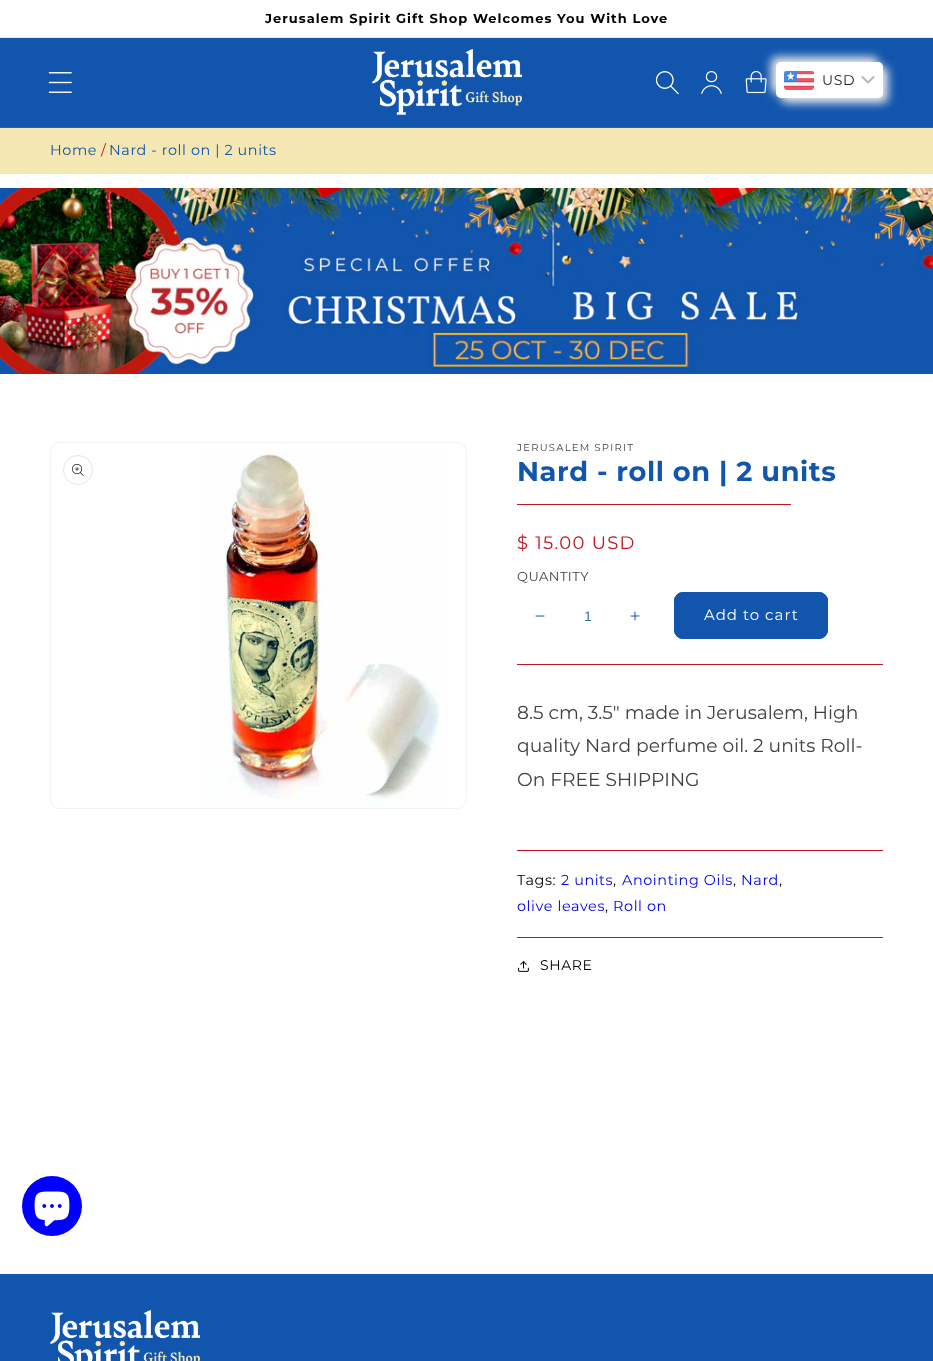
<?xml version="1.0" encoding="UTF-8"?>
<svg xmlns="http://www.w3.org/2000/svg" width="933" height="1361">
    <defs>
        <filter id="blur1" x="-50%" y="-200%" width="200%" height="500%"><feGaussianBlur stdDeviation="5"/></filter>
    </defs>
    <rect width="100%" height="100%" fill="#FFFFFF"/>
    <rect x="0" y="37" width="933" height="1" fill="#EBEBEB"/>
    <text x="265" y="23" font-family="Montserrat" font-size="13" font-weight="700" letter-spacing="1" fill="#000000">Jerusalem Spirit Gift Shop Welcomes You With Love</text>
    <rect x="0" y="38" width="933" height="89" fill="#1155AD"/>
    <rect x="0" y="127" width="933" height="1" fill="#2463B4"/>
    <image x="48" y="72" width="24" height="21" href="img_01.png"/>
    <image x="372" y="49" width="150" height="66" href="img_02.png"/>
    <image x="655" y="71" width="24" height="24" href="img_03.png"/>
    <image x="701" y="71" width="21" height="23" href="img_04.png"/>
    <image x="745" y="70" width="22" height="24" href="img_05.png"/>
    <rect x="771" y="57" width="107" height="36" rx="5" fill="#E8E8E8" filter="url(#blur1)"/>
    <rect x="781" y="67" width="107" height="36" rx="5" fill="#E8E8E8" filter="url(#blur1)"/>
    <rect x="776" y="62" width="107" height="36" rx="5" fill="#FFFFFF"/>
    <image x="784" y="71" width="30" height="19" href="img_06.png"/>
    <text x="822" y="85" font-family="Montserrat" font-size="14" letter-spacing="0.6" fill="#1E1E1E">USD</text>
    <path d="M 862.5 77 L 868 82.5 L 873.5 77" fill="none" stroke="#B7B7B7" stroke-width="1.8" stroke-linecap="round" stroke-linejoin="round"/>
    <rect x="0" y="128" width="933" height="46" fill="#F5E7B2"/>
    <text x="50" y="155" font-family="Montserrat" font-size="14.4" letter-spacing="0.6" fill="#1155AD">Home</text>
    <text x="101" y="155" font-family="Montserrat" font-size="14.4" letter-spacing="0.6" fill="#BE1622">/</text>
    <text x="109" y="155" font-family="Montserrat" font-size="14.4" letter-spacing="0.6" fill="#1155AD">Nard - roll on | 2 units</text>
    <image x="0" y="188" width="933" height="186" href="img_07.png"/>
    <rect x="50.5" y="442.5" width="416" height="366" rx="9.5" fill="none" stroke="#F2F2F2"/>
    <image x="201" y="451" width="241" height="357" href="img_08.png"/>
    <circle cx="78" cy="470" r="14.5" fill="none" stroke="#E6E6E6"/>
    <image x="72" y="464" width="12" height="12" href="img_09.png"/>
    <text x="517" y="451" font-family="Montserrat" font-size="10" letter-spacing="1.25" fill="#404040">JERUSALEM SPIRIT</text>
    <text x="517" y="481" font-family="Montserrat" font-size="27.25" font-weight="700" letter-spacing="0.6" fill="#1155AD">Nard - roll on | 2 units</text>
    <rect x="517" y="504" width="274" height="1" fill="#BE1622"/>
    <text x="517" y="549" font-family="Montserrat" font-size="18" letter-spacing="1.25" fill="#BE1622">$ 15.00 USD</text>
    <text x="517" y="581" font-family="Montserrat" font-size="13" letter-spacing="0.5" fill="#404040">QUANTITY</text>
    <image x="535" y="615" width="10" height="2" href="img_10.png"/>
    <text x="584" y="621" font-family="Liberation Sans" font-size="14" fill="#356FB9">1</text>
    <image x="630" y="611" width="10" height="10" href="img_11.png"/>
    <rect x="674" y="592" width="154" height="47" rx="9" fill="#1155AD"/>
    <rect x="674.5" y="592.5" width="153" height="46" rx="8.5" fill="none" stroke="#1155AD"/>
    <text x="704" y="620" font-family="Montserrat" font-size="15" letter-spacing="1" fill="#FFFFFF">Add to cart</text>
    <rect x="517" y="664" width="366" height="1" fill="#BE1622"/>
    <text font-family="Montserrat" font-size="18.7" fill="#404040">
        <tspan x="517" y="719">8.5 cm, 3.5" made in Jerusalem, High</tspan>
        <tspan x="517" y="752">quality Nard perfume oil. 2 units Roll-</tspan>
        <tspan x="517" y="786">On FREE SHIPPING</tspan>
    </text>
    <rect x="517" y="850" width="366" height="1" fill="#BE1622"/>
    <rect x="517" y="937" width="366" height="1" fill="#BE1622"/>
    <text x="517" y="885" font-family="Montserrat" font-size="14.4" letter-spacing="0.6" fill="#000000">Tags:</text>
    <text x="561" y="885" font-family="Montserrat" font-size="14.4" letter-spacing="0.6" fill="#0000EE">2 units</text>
    <text x="613" y="885" font-family="Montserrat" font-size="14.4" letter-spacing="0.6" fill="#000000">,</text>
    <text x="622" y="885" font-family="Montserrat" font-size="14.4" letter-spacing="0.6" fill="#0000EE">Anointing Oils</text>
    <text x="733" y="885" font-family="Montserrat" font-size="14.4" letter-spacing="0.6" fill="#000000">,</text>
    <text x="741" y="885" font-family="Montserrat" font-size="14.4" letter-spacing="0.6" fill="#0000EE">Nard</text>
    <text x="779" y="885" font-family="Montserrat" font-size="14.4" letter-spacing="0.6" fill="#000000">,</text>
    <text x="517" y="911" font-family="Montserrat" font-size="14.4" letter-spacing="0.6" fill="#0000EE">olive leaves</text>
    <text x="605" y="911" font-family="Montserrat" font-size="14.4" letter-spacing="0.6" fill="#000000">,</text>
    <text x="613" y="911" font-family="Montserrat" font-size="14.4" letter-spacing="0.6" fill="#0000EE">Roll on</text>
    <image x="518" y="961" width="11" height="11" href="img_12.png"/>
    <text x="540" y="970" font-family="Montserrat" font-size="14" letter-spacing="0.6" fill="#000000">SHARE</text>
    <circle cx="52" cy="1206" r="30" fill="#0000FF"/>
    <image x="34" y="1191" width="36" height="36" href="img_13.png"/>
    <rect x="0" y="1274" width="933" height="87" fill="#1155AD"/>
    <image x="50" y="1310" width="150" height="51" href="img_14.png"/>
</svg>
